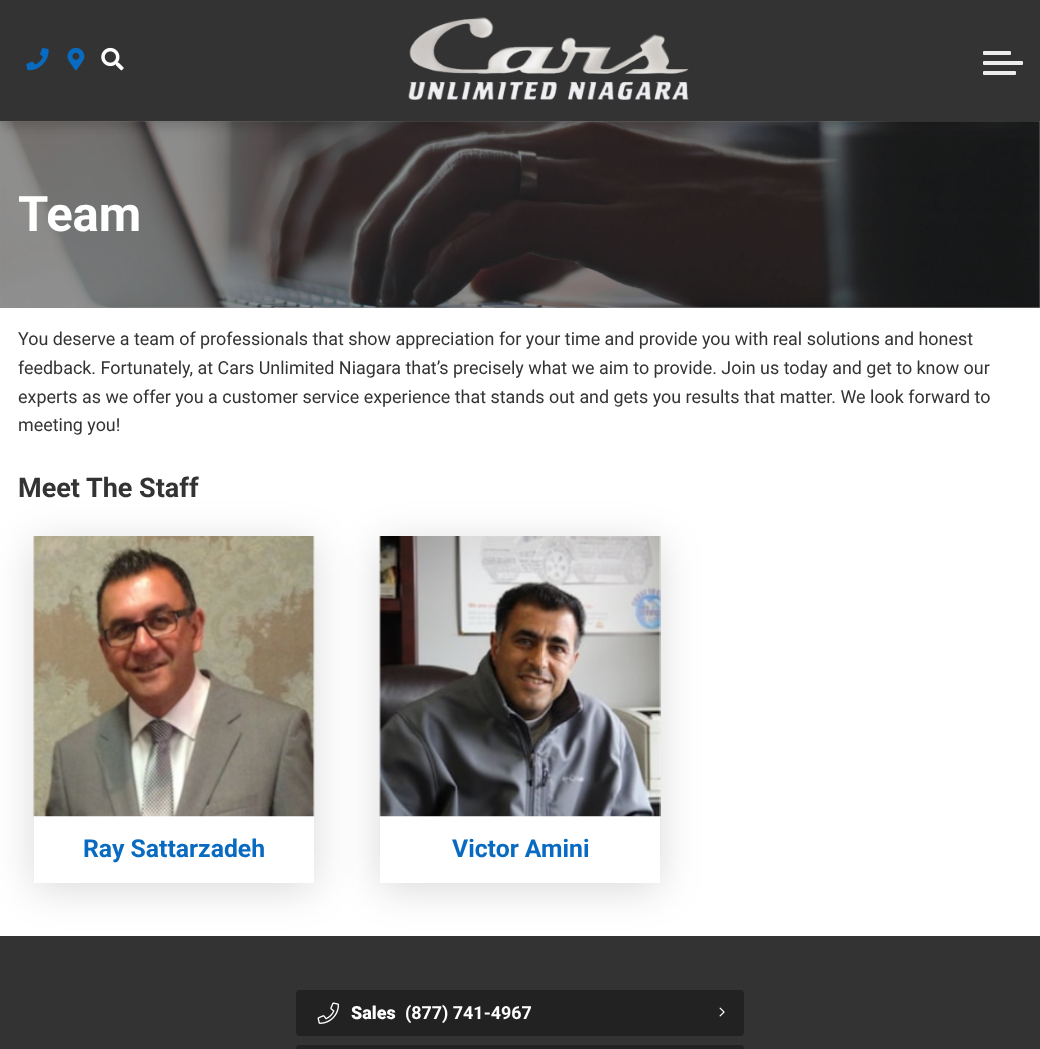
<?xml version="1.0" encoding="UTF-8"?>
<svg xmlns="http://www.w3.org/2000/svg" width="1040" height="1049">
    <defs>
        <filter id="blur1" x="-50%" y="-200%" width="200%" height="500%"><feGaussianBlur stdDeviation="6.5"/></filter>
        <clipPath id="clip1"><path d="M 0 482 H 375 V 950 H 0 Z M 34 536 H 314 V 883 H 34 Z" clip-rule="evenodd"/></clipPath>
        <filter id="blur2" x="-50%" y="-200%" width="200%" height="500%"><feGaussianBlur stdDeviation="20"/></filter>
        <clipPath id="clip2"><path d="M 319 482 H 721 V 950 H 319 Z M 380 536 H 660 V 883 H 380 Z" clip-rule="evenodd"/></clipPath>
    </defs>
    <rect width="100%" height="100%" fill="#FFFFFF"/>
    <rect x="0" y="121" width="1040" height="187" fill="#919191"/>
    <image x="0" y="121" width="1040" height="187" href="img_05.png"/>
    <rect x="0" y="5" width="1040" height="121" fill="#000000" fill-opacity="0.2" filter="url(#blur1)"/>
    <rect x="0" y="0" width="1040" height="121" fill="#333333"/>
    <image x="26" y="48" width="23" height="23" href="img_01.png"/>
    <image x="67" y="47" width="18" height="24" href="img_02.png"/>
    <image x="101" y="47" width="23" height="24" href="img_03.png"/>
    <image x="408" y="17" width="281" height="83" href="img_04.png"/>
    <rect x="983" y="61" width="40" height="4" rx="1" fill="#ECECEC"/>
    <rect x="983" y="51" width="28" height="4" rx="1" fill="#ECECEC"/>
    <rect x="983" y="71" width="33" height="4" rx="1" fill="#ECECEC"/>
    <text x="18" y="231" font-family="Roboto" font-size="49" font-weight="700" fill="#FFFFFF">Team</text>
    <text font-family="Roboto" font-size="17.92" fill="#333333">
        <tspan x="18" y="345">You deserve a team of professionals that show appreciation for your time and provide you with real solutions and honest</tspan>
        <tspan x="18" y="374">feedback. Fortunately, at Cars Unlimited Niagara that’s precisely what we aim to provide. Join us today and get to know our</tspan>
        <tspan x="18" y="403">experts as we offer you a customer service experience that stands out and gets you results that matter. We look forward to</tspan>
        <tspan x="18" y="431">meeting you!</tspan>
    </text>
    <text x="18" y="497" font-family="Roboto" font-size="27" font-weight="700" fill="#333333">Meet The Staff</text>
    <g clip-path="url(#clip1)">
        <rect x="34" y="543" width="280" height="346" fill="#000000" fill-opacity="0.15" filter="url(#blur2)"/>
    </g>
    <image x="33" y="536" width="282" height="281" href="img_06.png"/>
    <text x="83" y="857" font-family="Roboto" font-size="24.75" font-weight="700" fill="#086AC0">Ray Sattarzadeh</text>
    <g clip-path="url(#clip2)">
        <rect x="380" y="543" width="280" height="346" fill="#000000" fill-opacity="0.15" filter="url(#blur2)"/>
    </g>
    <image x="379" y="536" width="282" height="281" href="img_07.png"/>
    <text x="452" y="857" font-family="Roboto" font-size="24.75" font-weight="700" fill="#086AC0">Victor Amini</text>
    <rect x="0" y="936" width="1040" height="113" fill="#333333"/>
    <rect x="296" y="990" width="448" height="46" rx="4" fill="#222222"/>
    <image x="317" y="1002" width="22" height="22" href="img_08.png"/>
    <text x="351" y="1019" font-family="Roboto" font-size="17.92" font-weight="900" fill="#FFFFFF">Sales</text>
    <text x="405" y="1019" font-family="Roboto" font-size="17.92" font-weight="700" fill="#FFFFFF">(877) 741-4967</text>
    <image x="719" y="1007" width="6" height="10" href="img_09.png"/>
    <rect x="296" y="1045" width="448" height="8" rx="4" fill="#222222"/>
</svg>
